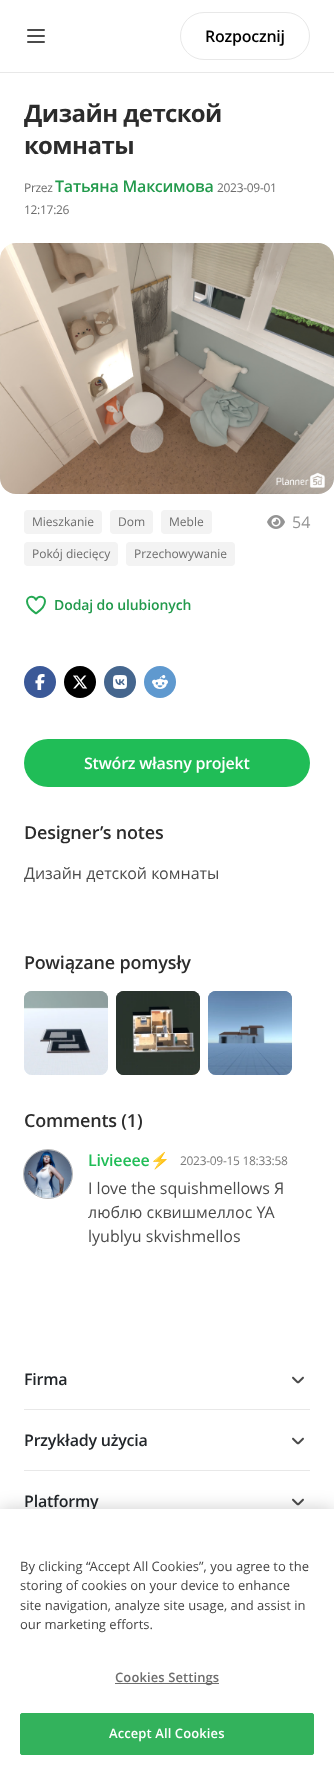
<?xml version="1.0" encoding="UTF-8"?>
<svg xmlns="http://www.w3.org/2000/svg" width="334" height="1771">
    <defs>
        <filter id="blur1" x="-50%" y="-200%" width="200%" height="500%"><feGaussianBlur stdDeviation="9"/></filter>
    </defs>
    <rect width="100%" height="100%" fill="#FFFFFF"/>
    <rect x="0" y="72" width="334" height="1" fill="#E8E8E8"/>
    <image x="27" y="29" width="18" height="14" href="img_01.png"/>
    <rect x="180.5" y="12.5" width="129" height="47" rx="23.5" fill="none" stroke="#E8E8E8"/>
    <text x="205" y="42" font-family="Open Sans" font-size="16" font-weight="600" letter-spacing="-0.2" fill="#000000">Rozpocznij</text>
    <text font-family="Open Sans" font-size="24" font-weight="700" letter-spacing="-0.5" fill="#2C2C2C">
        <tspan x="24" y="122">Дизайн детской</tspan>
        <tspan x="24" y="154">комнаты</tspan>
    </text>
    <text x="24" y="192" font-family="Open Sans" font-size="12" letter-spacing="-0.3" fill="#6D6D6D">Przez</text>
    <text x="55" y="192" font-family="Open Sans" font-size="16" font-weight="600" letter-spacing="-0.2" fill="#229A4C">Татьяна Максимова</text>
    <text x="217" y="192" font-family="Open Sans" font-size="12" letter-spacing="-0.3" fill="#6D6D6D">2023-09-01</text>
    <text x="24" y="214" font-family="Open Sans" font-size="12" letter-spacing="-0.3" fill="#6D6D6D">12:17:26</text>
    <image x="0" y="243" width="334" height="251" href="img_02.png"/>
    <rect x="24" y="510" width="78" height="24" rx="4" fill="#F3F3F3"/>
    <text x="32" y="526" font-family="Open Sans" font-size="12" fill="#6D6D6D">Mieszkanie</text>
    <rect x="110" y="510" width="43" height="24" rx="4" fill="#F3F3F3"/>
    <text x="118" y="526" font-family="Open Sans" font-size="12" fill="#6D6D6D">Dom</text>
    <rect x="161" y="510" width="51" height="24" rx="4" fill="#F3F3F3"/>
    <text x="169" y="526" font-family="Open Sans" font-size="12" fill="#6D6D6D">Meble</text>
    <rect x="24" y="542" width="94" height="24" rx="4" fill="#F3F3F3"/>
    <text x="32" y="558" font-family="Open Sans" font-size="12" fill="#6D6D6D">Pokój diecięcy</text>
    <rect x="126" y="542" width="109" height="24" rx="4" fill="#F3F3F3"/>
    <text x="134" y="558" font-family="Open Sans" font-size="12" fill="#6D6D6D">Przechowywanie</text>
    <image x="267" y="515" width="18" height="14" href="img_03.png"/>
    <text x="292" y="528" font-family="Open Sans" font-size="16" fill="#949494">54</text>
    <image x="26" y="595" width="20" height="20" href="img_04.png"/>
    <text x="54" y="610" font-family="Open Sans" font-size="14" font-weight="600" letter-spacing="-0.1" fill="#229A4C">Dodaj do ulubionych</text>
    <circle cx="40" cy="682" r="16" fill="#3B5998"/>
    <image x="35" y="674" width="10" height="16" href="img_05.png"/>
    <circle cx="80" cy="682" r="16" fill="#000000"/>
    <image x="73" y="675" width="15" height="14" href="img_06.png"/>
    <circle cx="120" cy="682" r="16" fill="#45668E"/>
    <image x="113" y="675" width="14" height="14" href="img_07.png"/>
    <circle cx="160" cy="682" r="16" fill="#5F99CF"/>
    <image x="152" y="675" width="16" height="14" href="img_08.png"/>
    <rect x="24" y="739" width="286" height="48" rx="24" fill="#20BD57"/>
    <text x="84" y="769" font-family="Open Sans" font-size="16" font-weight="600" letter-spacing="-0.2" fill="#FFFFFF">Stwórz własny projekt</text>
    <text x="24" y="839" font-family="Open Sans" font-size="18" font-weight="600" letter-spacing="-0.2" fill="#2C2C2C">Designer’s notes</text>
    <text x="24" y="879" font-family="Open Sans" font-size="16" fill="#4B4B4B">Дизайн детской комнаты</text>
    <text x="24" y="969" font-family="Open Sans" font-size="18" font-weight="600" letter-spacing="-0.2" fill="#2C2C2C">Powiązane pomysły</text>
    <image x="24" y="991" width="84" height="84" href="img_09.png"/>
    <image x="24" y="991" width="84" height="84" href="img_10.png"/>
    <image x="116" y="991" width="84" height="84" href="img_11.png"/>
    <image x="116" y="991" width="84" height="84" href="img_12.png"/>
    <image x="208" y="991" width="84" height="84" href="img_13.png"/>
    <image x="208" y="991" width="84" height="84" href="img_14.png"/>
    <text x="24" y="1127" font-family="Open Sans" font-size="18" font-weight="600" letter-spacing="-0.2" fill="#2C2C2C">Comments (1)</text>
    <circle cx="48" cy="1174" r="24.5" fill="none" stroke="#B5B5B5"/>
    <image x="24" y="1150" width="48" height="48" href="img_15.png"/>
    <text x="88" y="1166" font-family="Open Sans" font-size="16" font-weight="600" letter-spacing="-0.2" fill="#20BD57">Livieeee</text>
    <text x="150" y="1166" font-family="Noto Color Emoji" font-size="16" font-weight="700" letter-spacing="-0.2" fill="#20BD57">⚡</text>
    <text x="180" y="1165" font-family="Open Sans" font-size="12" letter-spacing="-0.3" fill="#7A7A7A">2023-09-15 18:33:58</text>
    <text font-family="Open Sans" font-size="16" fill="#4B4B4B">
        <tspan x="88" y="1194">I love the squishmellows Я</tspan>
        <tspan x="88" y="1218">люблю сквишмеллос YA</tspan>
        <tspan x="88" y="1242">lyublyu skvishmellos</tspan>
    </text>
    <rect x="24" y="1409" width="286" height="1" fill="#E8E8E8"/>
    <text x="24" y="1385" font-family="Open Sans" font-size="16" font-weight="600" letter-spacing="-0.2" fill="#212529">Firma</text>
    <image x="292" y="1376" width="12" height="8" href="img_16.png"/>
    <rect x="24" y="1470" width="286" height="1" fill="#E8E8E8"/>
    <text x="24" y="1446" font-family="Open Sans" font-size="16" font-weight="600" letter-spacing="-0.2" fill="#212529">Przykłady użycia</text>
    <image x="292" y="1437" width="12" height="8" href="img_16.png"/>
    <text x="24" y="1507" font-family="Open Sans" font-size="16" font-weight="600" letter-spacing="-0.2" fill="#212529">Platformy</text>
    <image x="292" y="1498" width="12" height="8" href="img_16.png"/>
    <rect x="0" y="1509" width="334" height="262" fill="#000000" fill-opacity="0.2" filter="url(#blur1)"/>
    <rect x="0" y="1509" width="334" height="262" fill="#FFFFFF"/>
    <text font-family="Open Sans" font-size="13" fill="#444444">
        <tspan x="20" y="1571">By clicking “Accept All Cookies”, you agree to the</tspan>
        <tspan x="20" y="1590">storing of cookies on your device to enhance</tspan>
        <tspan x="20" y="1610">site navigation, analyze site usage, and assist in</tspan>
        <tspan x="20" y="1629">our marketing efforts.</tspan>
    </text>
    <rect x="115" y="1683" width="104" height="1" fill="#6D6D6D"/>
    <text x="115" y="1682" font-family="Open Sans" font-size="13" font-weight="600" letter-spacing="0.1" fill="#6D6D6D">Cookies Settings</text>
    <rect x="20.5" y="1713.5" width="293" height="41" rx="1.5" fill="#33B25C" stroke="#33B25C"/>
    <text x="109" y="1738" font-family="Open Sans" font-size="13" font-weight="600" letter-spacing="0.1" fill="#FFFFFF">Accept All Cookies</text>
</svg>
